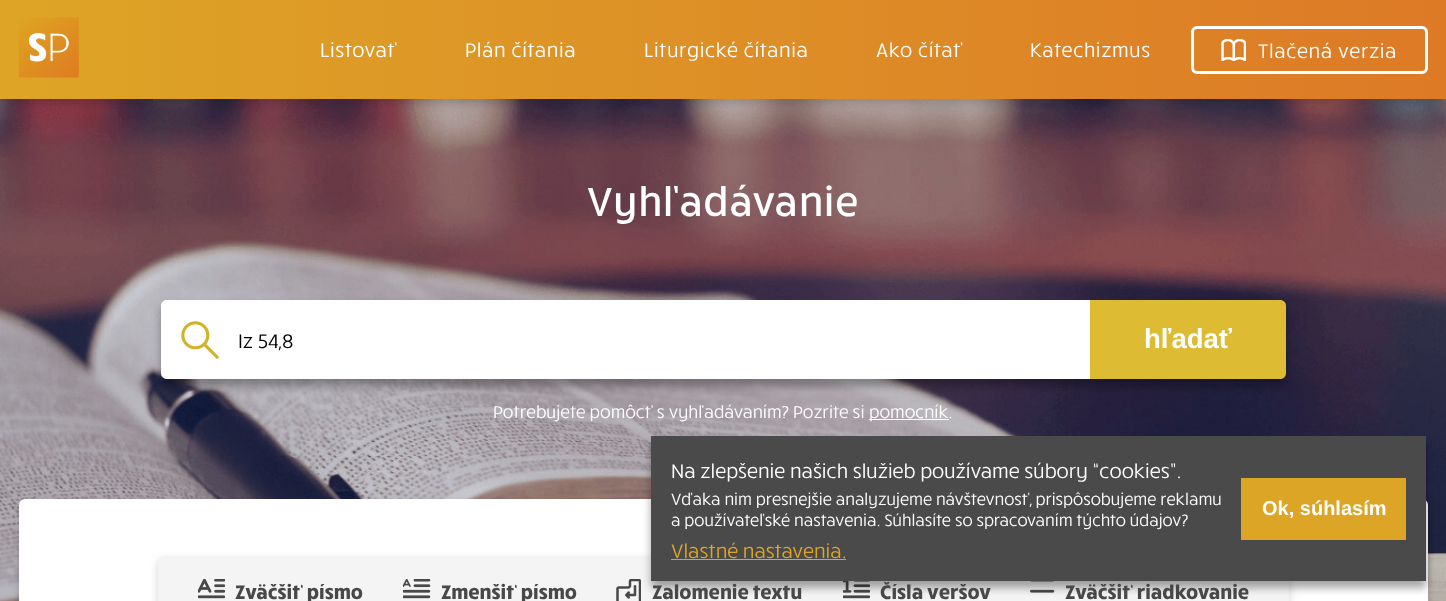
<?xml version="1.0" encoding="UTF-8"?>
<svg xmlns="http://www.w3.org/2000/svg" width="1446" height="601">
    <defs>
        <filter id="blur1" x="-50%" y="-200%" width="200%" height="500%"><feGaussianBlur stdDeviation="4"/></filter>
        <linearGradient id="g1" gradientUnits="userSpaceOnUse" x1="0" y1="49" x2="1446" y2="49"><stop offset="0" stop-color="#DDA526"/><stop offset="1" stop-color="#DD7A26"/></linearGradient>
        <clipPath id="clip1"><path d="M 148 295 H 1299 V 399 H 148 Z M 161 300 H 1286 V 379 H 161 Z" clip-rule="evenodd"/></clipPath>
    </defs>
    <rect width="100%" height="100%" fill="#FFFFFF"/>
    <image x="0" y="99" width="1446" height="502" href="img_03.png"/>
    <rect x="0" y="4" width="1446" height="99" fill="#000000" fill-opacity="0.16" filter="url(#blur1)"/>
    <rect x="0" y="0" width="1446" height="99" fill="url(#g1)"/>
    <image x="18" y="17" width="61" height="61" href="img_01.png"/>
    <text x="320" y="57" font-family="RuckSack" font-size="20" letter-spacing="0.6" fill="#FFFFFF">Listovať</text>
    <text x="465" y="57" font-family="RuckSack" font-size="20" letter-spacing="0.6" fill="#FFFFFF">Plán čítania</text>
    <text x="644" y="57" font-family="RuckSack" font-size="20" letter-spacing="0.6" fill="#FFFFFF">Liturgické čítania</text>
    <text x="876" y="57" font-family="RuckSack" font-size="20" letter-spacing="0.6" fill="#FFFFFF">Ako čítať</text>
    <text x="1030" y="57" font-family="RuckSack" font-size="20" letter-spacing="0.6" fill="#FFFFFF">Katechizmus</text>
    <rect x="1192.5" y="27.5" width="234" height="45" rx="4.5" fill="none" stroke="#FFFFFF" stroke-width="3"/>
    <image x="1221" y="39" width="25" height="22" href="img_02.png"/>
    <text x="1258" y="58" font-family="RuckSack" font-size="20" letter-spacing="0.6" fill="#FFFFFF">Tlačená verzia</text>
    <text x="587" y="216" font-family="RuckSack" font-size="41.25" font-weight="500" letter-spacing="0.75" fill="#FFFFFF">Vyhľadávanie</text>
    <g clip-path="url(#clip1)">
        <rect x="161" y="308" width="1125" height="78" fill="#000000" fill-opacity="0.31" filter="url(#blur1)"/>
    </g>
    <path d="M 167 300 H 219 V 379 H 167 C 163.5 379 161 376.5 161 373 V 306 C 161 302.5 163.5 300 167 300 Z" fill="#FFFFFF"/>
    <image x="181" y="321" width="38" height="38" href="img_04.png"/>
    <rect x="219" y="300" width="871" height="79" fill="#FFFFFF"/>
    <text x="238" y="348" font-family="RuckSack" font-size="20" fill="#000000">Iz 54,8</text>
    <path d="M 1090 300 H 1280 C 1283.5 300 1286 302.5 1286 306 V 373 C 1286 376.5 1283.5 379 1280 379 H 1090 Z" fill="#DDBC33"/>
    <text x="1144" y="348" font-family="Liberation Sans" font-size="27.5" font-weight="700" fill="#FFFFFF">hľadať</text>
    <text x="493" y="418" font-family="RuckSack" font-size="17.5" fill="#FFFFFF">Potrebujete pomôcť s vyhľadávaním? Pozrite si</text>
    <rect x="869" y="419" width="80" height="1" fill="#FFFFFF"/>
    <text x="869" y="418" font-family="RuckSack" font-size="17.5" fill="#FFFFFF">pomocník.</text>
    <rect x="19" y="503" width="1409" height="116" rx="6" fill="#000000" fill-opacity="0.16" filter="url(#blur1)"/>
    <rect x="19" y="499" width="1409" height="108" rx="6" fill="#FFFFFF"/>
    <rect x="158" y="560" width="1131" height="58" rx="5" fill="#000000" fill-opacity="0.16" filter="url(#blur1)"/>
    <rect x="158" y="556" width="1131" height="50" rx="5" fill="#F4F4F4"/>
    <image x="616" y="579" width="25" height="22" href="img_07.png"/>
    <image x="843" y="581" width="27" height="18" href="img_08.png"/>
    <image x="1030" y="581" width="25" height="12" href="img_09.png"/>
    <rect x="651" y="443" width="775" height="145" fill="#000000" fill-opacity="0.35" filter="url(#blur1)"/>
    <rect x="651" y="436" width="775" height="145" fill="#4A4A4A"/>
    <text x="671" y="478" font-family="RuckSack" font-size="20" fill="#FFFFFF">Na zlepšenie našich služieb používame súbory “cookies”.</text>
    <text font-family="RuckSack" font-size="16.7" fill="#FFFFFF">
        <tspan x="671" y="505">Vďaka nim presnejšie analyzujeme návštevnosť, prispôsobujeme reklamu</tspan>
        <tspan x="671" y="526">a používateľské nastavenia. Súhlasíte so spracovaním týchto údajov?</tspan>
    </text>
    <text x="671" y="558" font-family="RuckSack" font-size="20" fill="#DDA526">Vlastné nastavenia.</text>
    <rect x="671" y="559" width="175" height="1" fill="#DDA526"/>
    <rect x="1241" y="478" width="165" height="62" fill="#DDA526"/>
    <text x="1262" y="515" font-family="Liberation Sans" font-size="20" font-weight="700" fill="#FFFFFF">Ok, súhlasím</text>
    <image x="198" y="579" width="27" height="20" href="img_05.png"/>
    <text x="235" y="599" font-family="RuckSack" font-size="20" font-weight="700" fill="#484848">Zväčšiť písmo</text>
    <image x="403" y="579" width="28" height="20" href="img_06.png"/>
    <text x="441" y="599" font-family="RuckSack" font-size="20" font-weight="700" fill="#484848">Zmenšiť písmo</text>
    <text x="652" y="599" font-family="RuckSack" font-size="20" font-weight="700" fill="#484848">Zalomenie textu</text>
    <text x="880" y="599" font-family="RuckSack" font-size="20" font-weight="700" fill="#484848">Čísla veršov</text>
    <text x="1065" y="599" font-family="RuckSack" font-size="20" font-weight="700" fill="#484848">Zväčšiť riadkovanie</text>
</svg>
